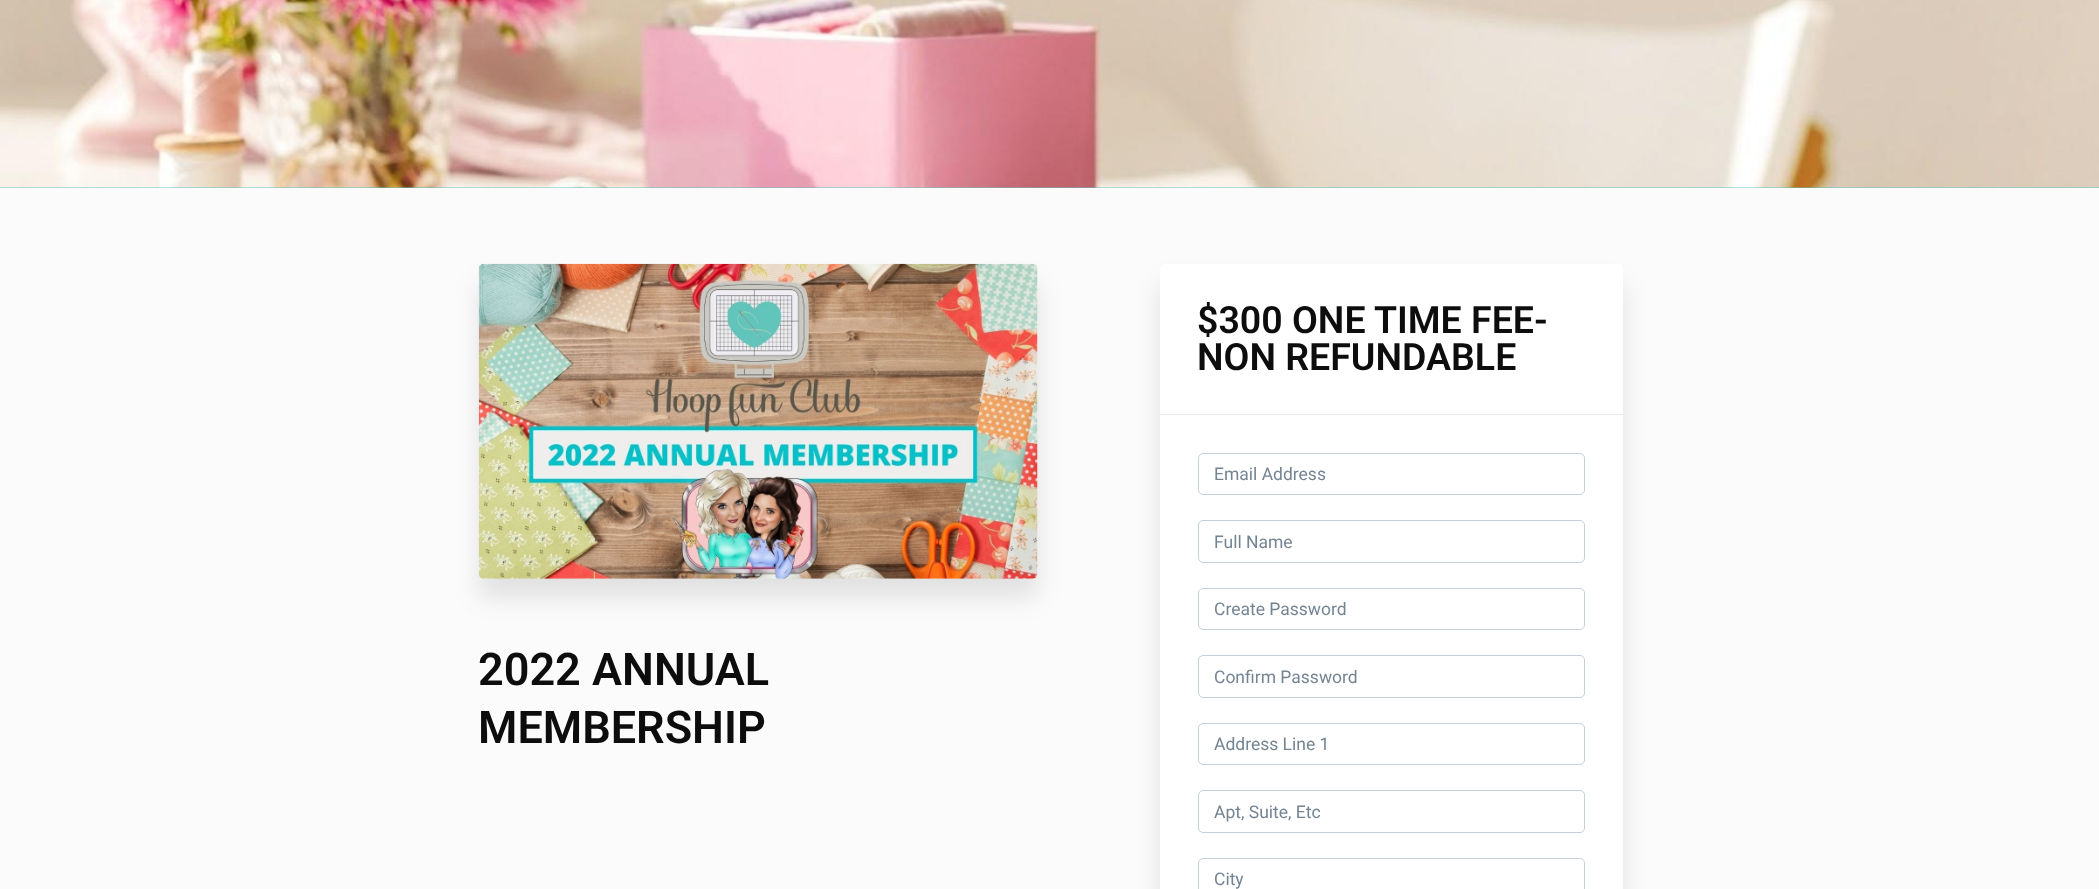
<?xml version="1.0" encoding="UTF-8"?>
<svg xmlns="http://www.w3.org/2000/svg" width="2099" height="889">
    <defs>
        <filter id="blur1" x="-50%" y="-200%" width="200%" height="500%"><feGaussianBlur stdDeviation="12.5"/></filter>
    </defs>
    <rect width="100%" height="100%" fill="#FBFBFB"/>
    <rect x="0" y="187" width="2099" height="1" fill="#62C5BC"/>
    <image x="0" y="0" width="2099" height="188" href="img_01.png"/>
    <rect x="479" y="283" width="559" height="315" rx="5" fill="#000000" fill-opacity="0.1" filter="url(#blur1)"/>
    <image x="478" y="263" width="560" height="316" href="img_02.png"/>
    <text font-family="Roboto" font-size="45" font-weight="600" fill="#0D0D0D">
        <tspan x="478" y="685">2022 ANNUAL</tspan>
        <tspan x="478" y="743">MEMBERSHIP</tspan>
    </text>
    <rect x="1160" y="283" width="463" height="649" rx="5" fill="#000000" fill-opacity="0.1" filter="url(#blur1)"/>
    <rect x="1160" y="264" width="463" height="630" rx="5" fill="#FFFFFF"/>
    <rect x="1160" y="414" width="463" height="1" fill="#E5E9E9"/>
    <text font-family="Roboto" font-size="37.5" font-weight="600" fill="#0D0D0D">
        <tspan x="1197" y="333">$300 ONE TIME FEE-</tspan>
        <tspan x="1197" y="370">NON REFUNDABLE</tspan>
    </text>
    <rect x="1198.5" y="453.5" width="386" height="41" rx="4.5" fill="none" stroke="#C7CFD8"/>
    <text x="1214" y="480" font-family="Roboto" font-size="17.5" fill="#748493">Email Address</text>
    <rect x="1198.5" y="520.5" width="386" height="42" rx="4.5" fill="none" stroke="#C7CFD8"/>
    <text x="1214" y="548" font-family="Roboto" font-size="17.5" fill="#748493">Full Name</text>
    <rect x="1198.5" y="588.5" width="386" height="41" rx="4.5" fill="none" stroke="#C7CFD8"/>
    <text x="1214" y="615" font-family="Roboto" font-size="17.5" fill="#748493">Create Password</text>
    <rect x="1198.5" y="655.5" width="386" height="42" rx="4.5" fill="none" stroke="#C7CFD8"/>
    <text x="1214" y="683" font-family="Roboto" font-size="17.5" fill="#748493">Confirm Password</text>
    <rect x="1198.5" y="723.5" width="386" height="41" rx="4.5" fill="none" stroke="#C7CFD8"/>
    <text x="1214" y="750" font-family="Roboto" font-size="17.5" fill="#748493">Address Line 1</text>
    <rect x="1198.5" y="790.5" width="386" height="42" rx="4.5" fill="none" stroke="#C7CFD8"/>
    <text x="1214" y="818" font-family="Roboto" font-size="17.5" fill="#748493">Apt, Suite, Etc</text>
    <rect x="1198.5" y="858.5" width="386" height="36" rx="4.5" fill="none" stroke="#C7CFD8"/>
    <text x="1214" y="885" font-family="Roboto" font-size="17.5" fill="#748493">City</text>
</svg>
